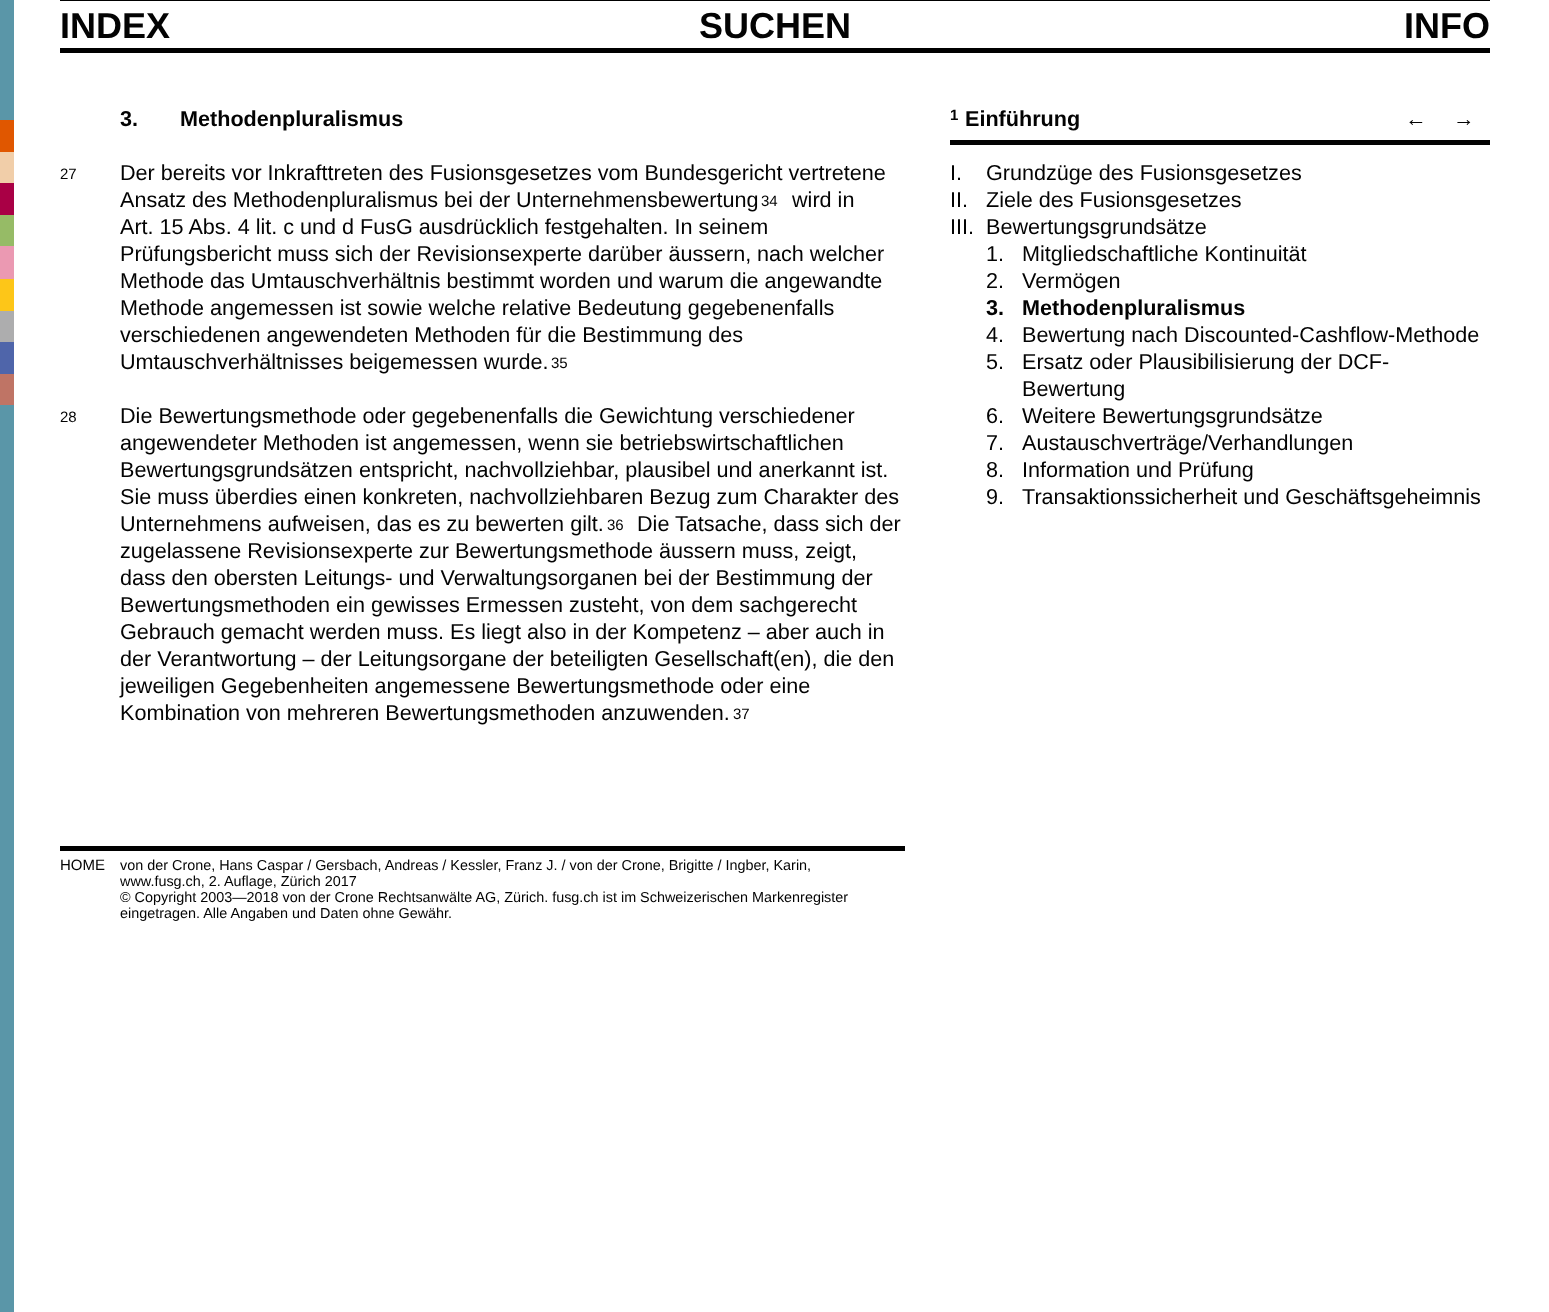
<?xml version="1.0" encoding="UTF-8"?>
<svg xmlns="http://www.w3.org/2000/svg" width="1549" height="1312">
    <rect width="100%" height="100%" fill="#FFFFFF"/>
    <rect x="0" y="0" width="14" height="1312" fill="#5A96A8"/>
    <rect x="0" y="120" width="14" height="32" fill="#E05700"/>
    <rect x="0" y="152" width="14" height="31" fill="#F1CEA9"/>
    <rect x="0" y="183" width="14" height="32" fill="#A90045"/>
    <rect x="0" y="215" width="14" height="31" fill="#96BB66"/>
    <rect x="0" y="246" width="14" height="33" fill="#EB99B2"/>
    <rect x="0" y="279" width="14" height="32" fill="#FDC618"/>
    <rect x="0" y="311" width="14" height="31" fill="#ADADAE"/>
    <rect x="0" y="342" width="14" height="32" fill="#4F65AA"/>
    <rect x="0" y="374" width="14" height="31" fill="#BF7465"/>
    <rect x="60" y="0" width="1430" height="1" fill="#000000"/>
    <rect x="60" y="48" width="1430" height="5" fill="#000000"/>
    <text x="60" y="38" font-family="Liberation Sans" font-size="36" font-weight="700" fill="#030303">INDEX</text>
    <text x="699" y="38" font-family="Liberation Sans" font-size="36" font-weight="700" fill="#030303">SUCHEN</text>
    <text x="1404" y="38" font-family="Liberation Sans" font-size="36" font-weight="700" fill="#030303">INFO</text>
    <text x="120" y="126" font-family="Liberation Sans" font-size="21.6" font-weight="700" fill="#030303">3.</text>
    <text x="180" y="126" font-family="Liberation Sans" font-size="21.6" font-weight="700" fill="#030303">Methodenpluralismus</text>
    <text x="60" y="179" font-family="Liberation Sans" font-size="15" fill="#030303">27</text>
    <text font-family="Liberation Sans" font-size="21.6" fill="#030303">
        <tspan x="120" y="180">Der bereits vor Inkrafttreten des Fusionsgesetzes vom Bundesgericht vertretene</tspan>
        <tspan x="120" y="207">Ansatz des Methodenpluralismus bei der Unternehmensbewertung</tspan>
    </text>
    <text x="761" y="206" font-family="Liberation Sans" font-size="15" fill="#030303">34</text>
    <text x="792" y="207" font-family="Liberation Sans" font-size="21.6" fill="#030303">wird in</text>
    <text font-family="Liberation Sans" font-size="21.6" fill="#030303">
        <tspan x="120" y="234">Art. 15 Abs. 4 lit. c und d FusG ausdrücklich festgehalten. In seinem</tspan>
        <tspan x="120" y="261">Prüfungsbericht muss sich der Revisionsexperte darüber äussern,</tspan>
    </text>
    <text x="757" y="261" font-family="Liberation Sans" font-size="21.6" fill="#030303">nach welcher</text>
    <text font-family="Liberation Sans" font-size="21.6" fill="#030303">
        <tspan x="120" y="288">Methode das Umtauschverhältnis bestimmt worden und warum die angewandte</tspan>
        <tspan x="120" y="315">Methode angemessen ist sowie welche relative Bedeutung gegebenenfalls</tspan>
        <tspan x="120" y="342">verschiedenen angewendeten Methoden für die Bestimmung des</tspan>
        <tspan x="120" y="369">Umtauschverhältnisses beigemessen wurde.</tspan>
    </text>
    <text x="551" y="368" font-family="Liberation Sans" font-size="15" fill="#030303">35</text>
    <text x="60" y="422" font-family="Liberation Sans" font-size="15" fill="#030303">28</text>
    <text font-family="Liberation Sans" font-size="21.6" fill="#030303">
        <tspan x="120" y="423">Die Bewertungsmethode oder gegebenenfalls die Gewichtung verschiedener</tspan>
        <tspan x="120" y="450">angewendeter Methoden ist angemessen, wenn sie betriebswirtschaftlichen</tspan>
        <tspan x="120" y="477">Bewertungsgrundsätzen entspricht, nachvollziehbar, plausibel und anerkannt ist.</tspan>
        <tspan x="120" y="504">Sie muss überdies einen konkreten, nachvollziehbaren Bezug zum Charakter des</tspan>
        <tspan x="120" y="531">Unternehmens aufweisen, das es zu bewerten gilt.</tspan>
    </text>
    <text x="607" y="530" font-family="Liberation Sans" font-size="15" fill="#030303">36</text>
    <text x="637" y="531" font-family="Liberation Sans" font-size="21.6" fill="#030303">Die Tatsache, dass sich der</text>
    <text font-family="Liberation Sans" font-size="21.6" fill="#030303">
        <tspan x="120" y="558">zugelassene Revisionsexperte zur Bewertungsmethode äussern muss, zeigt,</tspan>
        <tspan x="120" y="585">dass den obersten Leitungs- und Verwaltungsorganen bei der Bestimmung der</tspan>
        <tspan x="120" y="612">Bewertungsmethoden ein gewisses Ermessen zusteht, von dem sachgerecht</tspan>
        <tspan x="120" y="639">Gebrauch gemacht werden muss. Es liegt also in der Kompetenz – aber auch in</tspan>
        <tspan x="120" y="666">der Verantwortung – der Leitungsorgane der beteiligten Gesellschaft(en), die den</tspan>
        <tspan x="120" y="693">jeweiligen Gegebenheiten angemessene Bewertungsmethode oder eine</tspan>
        <tspan x="120" y="720">Kombination von mehreren Bewertungsmethoden anzuwenden.</tspan>
    </text>
    <text x="733" y="719" font-family="Liberation Sans" font-size="15" fill="#030303">37</text>
    <rect x="60" y="846" width="845" height="5" fill="#000000"/>
    <text x="60" y="870" font-family="Liberation Sans" font-size="15" fill="#030303">HOME</text>
    <text font-family="Liberation Sans" font-size="14.4" fill="#030303">
        <tspan x="120" y="870">von der Crone, Hans Caspar / Gersbach, Andreas / Kessler, Franz J. / von der Crone, Brigitte / Ingber, Karin,</tspan>
        <tspan x="120" y="886">www.fusg.ch, 2. Auflage, Zürich 2017</tspan>
        <tspan x="120" y="902">© Copyright 2003—2018 von der Crone Rechtsanwälte AG, Zürich. fusg.ch ist im Schweizerischen Markenregister</tspan>
        <tspan x="120" y="918">eingetragen. Alle Angaben und Daten ohne Gewähr.</tspan>
    </text>
    <text x="950" y="120" font-family="Liberation Sans" font-size="15" font-weight="700" fill="#030303">1</text>
    <text x="965" y="126" font-family="Liberation Sans" font-size="21.6" font-weight="700" fill="#030303">Einführung</text>
    <text x="1405" y="126" font-family="Liberation Sans" font-size="21.6" font-weight="700" fill="#030303">←</text>
    <text x="1453" y="126" font-family="Liberation Sans" font-size="21.6" font-weight="700" fill="#030303">→</text>
    <rect x="950" y="140" width="540" height="5" fill="#030303"/>
    <text x="950" y="180" font-family="Liberation Sans" font-size="21.6" fill="#030303">I.</text>
    <text x="986" y="180" font-family="Liberation Sans" font-size="21.6" fill="#030303">Grundzüge des Fusionsgesetzes</text>
    <text x="950" y="207" font-family="Liberation Sans" font-size="21.6" fill="#030303">II.</text>
    <text x="986" y="207" font-family="Liberation Sans" font-size="21.6" fill="#030303">Ziele des Fusionsgesetzes</text>
    <text x="950" y="234" font-family="Liberation Sans" font-size="21.6" fill="#030303">III.</text>
    <text font-family="Liberation Sans" font-size="21.6" fill="#030303">
        <tspan x="986" y="234">Bewertungsgrundsätze</tspan>
        <tspan x="986" y="261">1.</tspan>
    </text>
    <text x="1022" y="261" font-family="Liberation Sans" font-size="21.6" fill="#030303">Mitgliedschaftliche Kontinuität</text>
    <text x="986" y="288" font-family="Liberation Sans" font-size="21.6" fill="#030303">2.</text>
    <text x="1022" y="288" font-family="Liberation Sans" font-size="21.6" fill="#030303">Vermögen</text>
    <text x="986" y="315" font-family="Liberation Sans" font-size="21.6" font-weight="700" fill="#030303">3.</text>
    <text x="1022" y="315" font-family="Liberation Sans" font-size="21.6" font-weight="700" fill="#030303">Methodenpluralismus</text>
    <text x="986" y="342" font-family="Liberation Sans" font-size="21.6" fill="#030303">4.</text>
    <text x="1022" y="342" font-family="Liberation Sans" font-size="21.6" fill="#030303">Bewertung nach Discounted-Cashflow-Methode</text>
    <text x="986" y="369" font-family="Liberation Sans" font-size="21.6" fill="#030303">5.</text>
    <text font-family="Liberation Sans" font-size="21.6" fill="#030303">
        <tspan x="1022" y="369">Ersatz oder Plausibilisierung der DCF-</tspan>
        <tspan x="1022" y="396">Bewertung</tspan>
    </text>
    <text x="986" y="423" font-family="Liberation Sans" font-size="21.6" fill="#030303">6.</text>
    <text x="1022" y="423" font-family="Liberation Sans" font-size="21.6" fill="#030303">Weitere Bewertungsgrundsätze</text>
    <text x="986" y="450" font-family="Liberation Sans" font-size="21.6" fill="#030303">7.</text>
    <text x="1022" y="450" font-family="Liberation Sans" font-size="21.6" fill="#030303">Austauschverträge/Verhandlungen</text>
    <text x="986" y="477" font-family="Liberation Sans" font-size="21.6" fill="#030303">8.</text>
    <text x="1022" y="477" font-family="Liberation Sans" font-size="21.6" fill="#030303">Information und Prüfung</text>
    <text x="986" y="504" font-family="Liberation Sans" font-size="21.6" fill="#030303">9.</text>
    <text x="1022" y="504" font-family="Liberation Sans" font-size="21.6" fill="#030303">Transaktionssicherheit und Geschäftsgeheimnis</text>
</svg>
